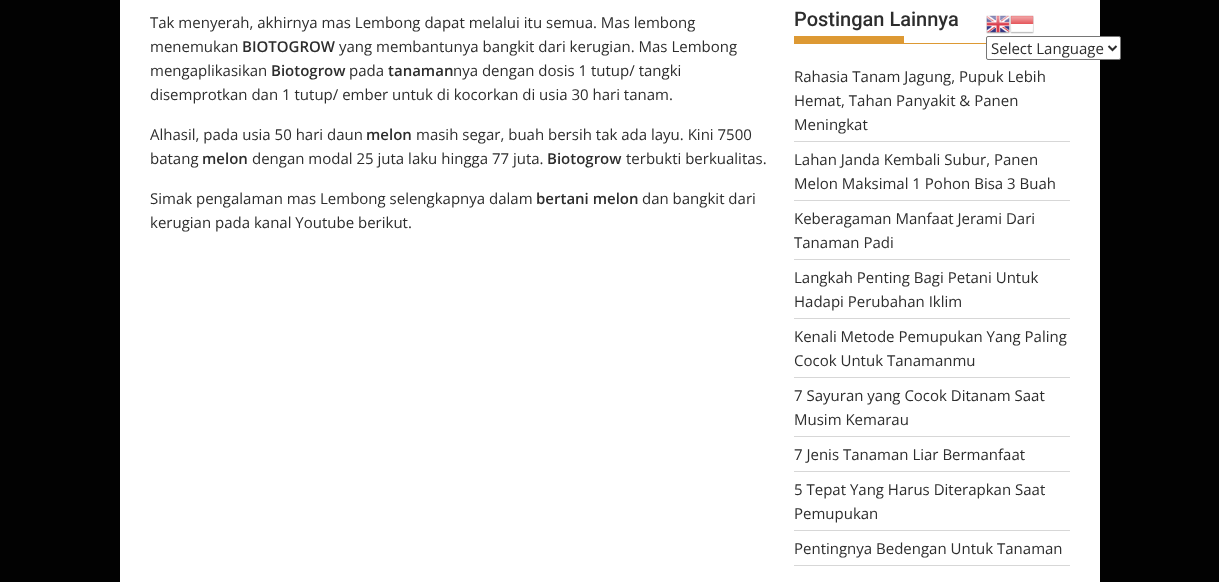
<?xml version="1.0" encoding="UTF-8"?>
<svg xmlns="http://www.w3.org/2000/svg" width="1219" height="582">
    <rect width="100%" height="100%" fill="#020202"/>
    <rect x="120" y="0" width="980" height="582" fill="#FFFFFF"/>
    <text font-family="Open Sans" font-size="15" fill="#2D2D2D">
        <tspan x="150" y="28">Tak menyerah, akhirnya mas Lembong dapat melalui itu semua. Mas lembong</tspan>
        <tspan x="150" y="52">menemukan</tspan>
    </text>
    <text x="242" y="52" font-family="Open Sans" font-size="15" font-weight="600" fill="#2D2D2D">BIOTOGROW</text>
    <text x="339" y="52" font-family="Open Sans" font-size="15" fill="#2D2D2D">yang membantunya bangkit dari kerugian. Mas Lembong</text>
    <text x="150" y="76" font-family="Open Sans" font-size="15" fill="#2D2D2D">mengaplikasikan</text>
    <text x="271" y="76" font-family="Open Sans" font-size="15" font-weight="600" fill="#2D2D2D">Biotogrow</text>
    <text x="349" y="76" font-family="Open Sans" font-size="15" fill="#2D2D2D">pada</text>
    <text x="388" y="76" font-family="Open Sans" font-size="15" font-weight="600" fill="#2D2D2D">tanaman</text>
    <text x="453" y="76" font-family="Open Sans" font-size="15" fill="#2D2D2D">nya dengan dosis 1 tutup/ tangki</text>
    <text x="150" y="100" font-family="Open Sans" font-size="15" fill="#2D2D2D">disemprotkan dan 1 tutup/ ember untuk di kocorkan di usia 30 hari tanam.</text>
    <text x="150" y="140" font-family="Open Sans" font-size="15" fill="#2D2D2D">Alhasil, pada usia 50 hari daun</text>
    <text x="366" y="140" font-family="Open Sans" font-size="15" font-weight="600" fill="#2D2D2D">melon</text>
    <text x="416" y="140" font-family="Open Sans" font-size="15" fill="#2D2D2D">masih segar, buah bersih tak ada layu. Kini 7500</text>
    <text x="150" y="164" font-family="Open Sans" font-size="15" fill="#2D2D2D">batang</text>
    <text x="202" y="164" font-family="Open Sans" font-size="15" font-weight="600" fill="#2D2D2D">melon</text>
    <text x="252" y="164" font-family="Open Sans" font-size="15" fill="#2D2D2D">dengan modal 25 juta laku hingga 77 juta.</text>
    <text x="547" y="164" font-family="Open Sans" font-size="15" font-weight="600" fill="#2D2D2D">Biotogrow</text>
    <text x="626" y="164" font-family="Open Sans" font-size="15" fill="#2D2D2D">terbukti berkualitas.</text>
    <text x="150" y="204" font-family="Open Sans" font-size="15" fill="#2D2D2D">Simak pengalaman mas Lembong selengkapnya dalam</text>
    <text x="536" y="204" font-family="Open Sans" font-size="15" font-weight="600" fill="#2D2D2D">bertani melon</text>
    <text x="642" y="204" font-family="Open Sans" font-size="15" fill="#2D2D2D">dan bangkit dari</text>
    <text x="150" y="228" font-family="Open Sans" font-size="15" fill="#2D2D2D">kerugian pada kanal Youtube berikut.</text>
    <rect x="794" y="43" width="192" height="1" fill="#DD9933"/>
    <text x="794" y="26" font-family="Roboto" font-size="20" font-weight="500" fill="#2D2D2D">Postingan Lainnya</text>
    <rect x="794" y="36" width="110" height="7" fill="#DD9933"/>
    <rect x="794" y="141" width="276" height="1" fill="#D7D7D7"/>
    <text font-family="Open Sans" font-size="15" fill="#2D2D2D">
        <tspan x="794" y="82">Rahasia Tanam Jagung, Pupuk Lebih</tspan>
        <tspan x="794" y="106">Hemat, Tahan Panyakit &amp; Panen</tspan>
        <tspan x="794" y="130">Meningkat</tspan>
    </text>
    <rect x="794" y="200" width="276" height="1" fill="#D7D7D7"/>
    <text font-family="Open Sans" font-size="15" fill="#2D2D2D">
        <tspan x="794" y="165">Lahan Janda Kembali Subur, Panen</tspan>
        <tspan x="794" y="189">Melon Maksimal 1 Pohon Bisa 3 Buah</tspan>
    </text>
    <rect x="794" y="259" width="276" height="1" fill="#D7D7D7"/>
    <text font-family="Open Sans" font-size="15" fill="#2D2D2D">
        <tspan x="794" y="224">Keberagaman Manfaat Jerami Dari</tspan>
        <tspan x="794" y="248">Tanaman Padi</tspan>
    </text>
    <rect x="794" y="318" width="276" height="1" fill="#D7D7D7"/>
    <text font-family="Open Sans" font-size="15" fill="#2D2D2D">
        <tspan x="794" y="283">Langkah Penting Bagi Petani Untuk</tspan>
        <tspan x="794" y="307">Hadapi Perubahan Iklim</tspan>
    </text>
    <rect x="794" y="377" width="276" height="1" fill="#D7D7D7"/>
    <text font-family="Open Sans" font-size="15" fill="#2D2D2D">
        <tspan x="794" y="342">Kenali Metode Pemupukan Yang Paling</tspan>
        <tspan x="794" y="366">Cocok Untuk Tanamanmu</tspan>
    </text>
    <rect x="794" y="436" width="276" height="1" fill="#D7D7D7"/>
    <text font-family="Open Sans" font-size="15" fill="#2D2D2D">
        <tspan x="794" y="401">7 Sayuran yang Cocok Ditanam Saat</tspan>
        <tspan x="794" y="425">Musim Kemarau</tspan>
    </text>
    <rect x="794" y="471" width="276" height="1" fill="#D7D7D7"/>
    <text x="794" y="460" font-family="Open Sans" font-size="15" fill="#2D2D2D">7 Jenis Tanaman Liar Bermanfaat</text>
    <rect x="794" y="530" width="276" height="1" fill="#D7D7D7"/>
    <text font-family="Open Sans" font-size="15" fill="#2D2D2D">
        <tspan x="794" y="495">5 Tepat Yang Harus Diterapkan Saat</tspan>
        <tspan x="794" y="519">Pemupukan</tspan>
    </text>
    <rect x="794" y="565" width="276" height="1" fill="#D7D7D7"/>
    <text x="794" y="554" font-family="Open Sans" font-size="15" fill="#2D2D2D">Pentingnya Bedengan Untuk Tanaman</text>
    <image x="986" y="15" width="24" height="19" href="img_01.png"/>
    <image x="1010" y="15" width="24" height="19" href="img_02.png"/>
    <rect x="986.5" y="36.5" width="134" height="23" rx="1.5" fill="#FFFFFF" stroke="#767676"/>
    <path d="M 1108.5 46 L 1112.5 50 L 1116.5 46" fill="none" stroke="#2D2D2D" stroke-width="2"/>
    <text x="991" y="54" font-family="Open Sans" font-size="15" fill="#2D2D2D">Select Language</text>
</svg>
